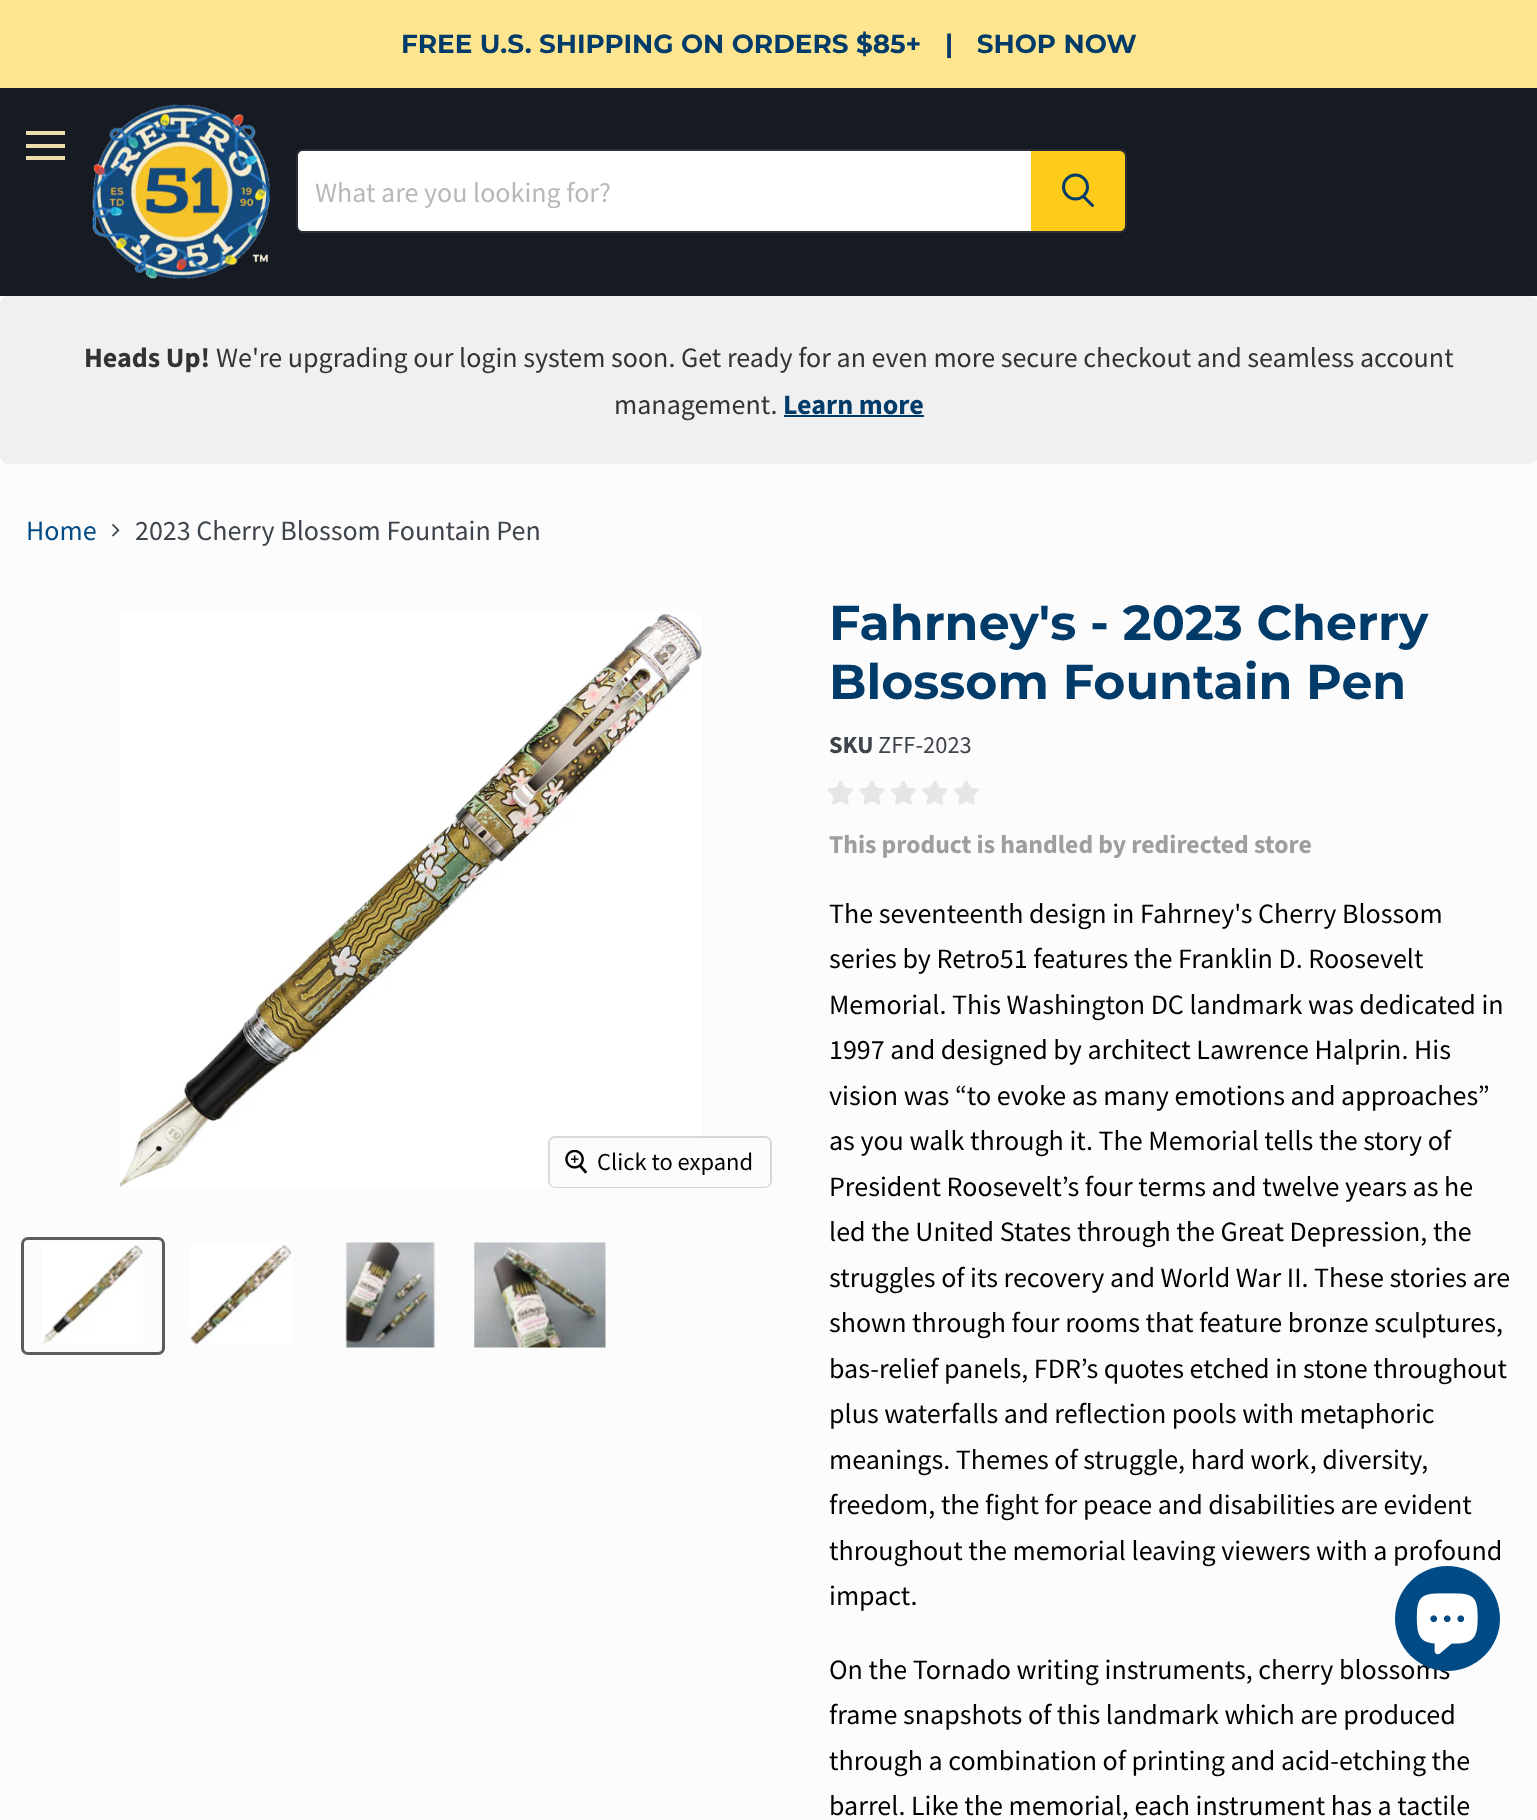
<?xml version="1.0" encoding="UTF-8"?>
<svg xmlns="http://www.w3.org/2000/svg" width="1537" height="1820">
    <defs>
        <clipPath id="clip1"><rect x="315" y="173" width="698" height="35"/></clipPath>
    </defs>
    <rect width="100%" height="100%" fill="#FCFCFC"/>
    <rect x="0" y="0" width="1537" height="88" fill="#FFE590"/>
    <text x="401" y="53" font-family="Montserrat" font-size="26.25" font-weight="700" fill="#003B69">FREE U.S. SHIPPING ON ORDERS $85+</text>
    <text x="945" y="53" font-family="Montserrat" font-size="26.25" font-weight="700" fill="#003B69">|   SHOP NOW</text>
    <rect x="0" y="88" width="1537" height="208" fill="#161B23"/>
    <rect x="26" y="131" width="39" height="4" fill="#ECDDAB"/>
    <rect x="26" y="144" width="39" height="4" fill="#ECDDAB"/>
    <rect x="26" y="156" width="39" height="4" fill="#ECDDAB"/>
    <image x="92" y="104" width="178" height="175" href="img_01.png"/>
    <rect x="297" y="150" width="829" height="82" rx="6" fill="none" stroke="#7E7E7E" stroke-opacity="0.2" stroke-width="2"/>
    <path d="M 303 151 H 1031 V 231 H 303 C 300 231 298 229 298 226 V 156 C 298 153 300 151 303 151 Z" fill="#FFFFFF"/>
    <g clip-path="url(#clip1)">
        <text x="315" y="202" font-family="Source Sans Pro" font-size="28" fill="#B8B8B8">What are you looking for?</text>
    </g>
    <path d="M 1032 152 H 1120 C 1122 152 1124 154 1124 156 V 226 C 1124 228 1122 230 1120 230 H 1032 Z" fill="#FFCB1B" stroke="#FFCB1B" stroke-width="2"/>
    <path d="M 1092.5 205.5 L 1084 197" fill="none" stroke="#003B69" stroke-width="3" stroke-linecap="round"/>
    <circle cx="1075.5" cy="187" r="12" fill="none" stroke="#003B69" stroke-width="3"/>
    <rect x="0" y="296" width="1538" height="168" rx="9" fill="#F0F0F0"/>
    <text x="84" y="367" font-family="Source Sans Pro" font-size="28" font-weight="700" fill="#333333">Heads Up!</text>
    <text x="216" y="367" font-family="Source Sans Pro" font-size="28" fill="#333333">We're upgrading our login system soon. Get ready for an even more secure checkout and seamless account</text>
    <text x="614" y="414" font-family="Source Sans Pro" font-size="28" fill="#333333">management.</text>
    <text x="783" y="414" font-family="Source Sans Pro" font-size="28" font-weight="700" fill="#003B69">Learn more</text>
    <rect x="784" y="415" width="140" height="2" fill="#003B69"/>
    <text x="26" y="540" font-family="Source Sans Pro" font-size="28" fill="#004B85">Home</text>
    <image x="112" y="523" width="8" height="14" href="img_02.png"/>
    <text x="135" y="540" font-family="Source Sans Pro" font-size="28" fill="#3E444C">2023 Cherry Blossom Fountain Pen</text>
    <image x="119" y="614" width="583" height="573" href="img_03.png"/>
    <rect x="549" y="1137" width="222" height="50" rx="6" fill="none" stroke="#000000" stroke-opacity="0.15" stroke-width="2"/>
    <rect x="550" y="1138" width="220" height="49" rx="5" fill="#FCFCFC" fill-opacity="0.9"/>
    <image x="565" y="1150" width="23" height="24" href="img_04.png"/>
    <text x="597" y="1170" font-family="Source Sans Pro" font-size="24.5" fill="#000000">Click to expand</text>
    <rect x="22.5" y="1238.5" width="141" height="115" rx="5.5" fill="none" stroke="#5C5C5C" stroke-width="3"/>
    <image x="42" y="1245" width="101" height="99" href="img_05.png"/>
    <image x="190" y="1245" width="102" height="100" href="img_06.png"/>
    <image x="345" y="1242" width="91" height="106" href="img_07.png"/>
    <image x="474" y="1242" width="132" height="106" href="img_08.png"/>
    <text font-family="Montserrat" font-size="49" font-weight="700" fill="#003B69">
        <tspan x="829" y="640">Fahrney's - 2023 Cherry</tspan>
        <tspan x="829" y="699">Blossom Fountain Pen</tspan>
    </text>
    <text x="829" y="753" font-family="Source Sans Pro" font-size="24.5" font-weight="700" fill="#3E444C">SKU</text>
    <text x="878" y="753" font-family="Source Sans Pro" font-size="24.5" fill="#3E444C">ZFF-2023</text>
    <image x="828" y="780" width="25" height="25" href="img_09.png"/>
    <image x="859" y="780" width="26" height="25" href="img_10.png"/>
    <image x="891" y="780" width="25" height="25" href="img_09.png"/>
    <image x="922" y="780" width="26" height="25" href="img_10.png"/>
    <image x="954" y="780" width="25" height="25" href="img_09.png"/>
    <text x="829" y="853" font-family="Source Sans Pro" font-size="25.7" font-weight="700" fill="#9E9E9E">This product is handled by redirected store</text>
    <text font-family="Source Sans Pro" font-size="28" fill="#000000">
        <tspan x="829" y="923">The seventeenth design in Fahrney's Cherry Blossom</tspan>
        <tspan x="829" y="968">series by Retro51 features the Franklin D. Roosevelt</tspan>
        <tspan x="829" y="1014">Memorial. This Washington DC landmark was dedicated in</tspan>
        <tspan x="829" y="1059">1997 and designed by architect Lawrence Halprin. His</tspan>
        <tspan x="829" y="1105">vision was “to evoke as many emotions and approaches”</tspan>
        <tspan x="829" y="1150">as you walk through it. The Memorial tells the story of</tspan>
        <tspan x="829" y="1196">President Roosevelt’s four terms and twelve years as he</tspan>
        <tspan x="829" y="1241">led the United States through the Great Depression, the</tspan>
        <tspan x="829" y="1287">struggles of its recovery and World War II. These stories are</tspan>
        <tspan x="829" y="1332">shown through four rooms that feature bronze sculptures,</tspan>
        <tspan x="829" y="1378">bas-relief panels, FDR’s quotes etched in stone throughout</tspan>
        <tspan x="829" y="1423">plus waterfalls and reflection pools with metaphoric</tspan>
        <tspan x="829" y="1469">meanings. Themes of struggle, hard work, diversity,</tspan>
        <tspan x="829" y="1514">freedom, the fight for peace and disabilities are evident</tspan>
        <tspan x="829" y="1560">throughout the memorial leaving viewers with a profound</tspan>
        <tspan x="829" y="1605">impact.</tspan>
    </text>
    <text font-family="Source Sans Pro" font-size="28" fill="#000000">
        <tspan x="829" y="1679">On the Tornado writing instruments, cherry blossoms</tspan>
        <tspan x="829" y="1724">frame snapshots of this landmark which are produced</tspan>
        <tspan x="829" y="1770">through a combination of printing and acid-etching the</tspan>
        <tspan x="829" y="1815">barrel. Like the memorial, each instrument has a tactile</tspan>
    </text>
    <circle cx="1447.5" cy="1618.5" r="52.5" fill="#004B85"/>
    <image x="1416" y="1593" width="62" height="62" href="img_11.png"/>
</svg>
